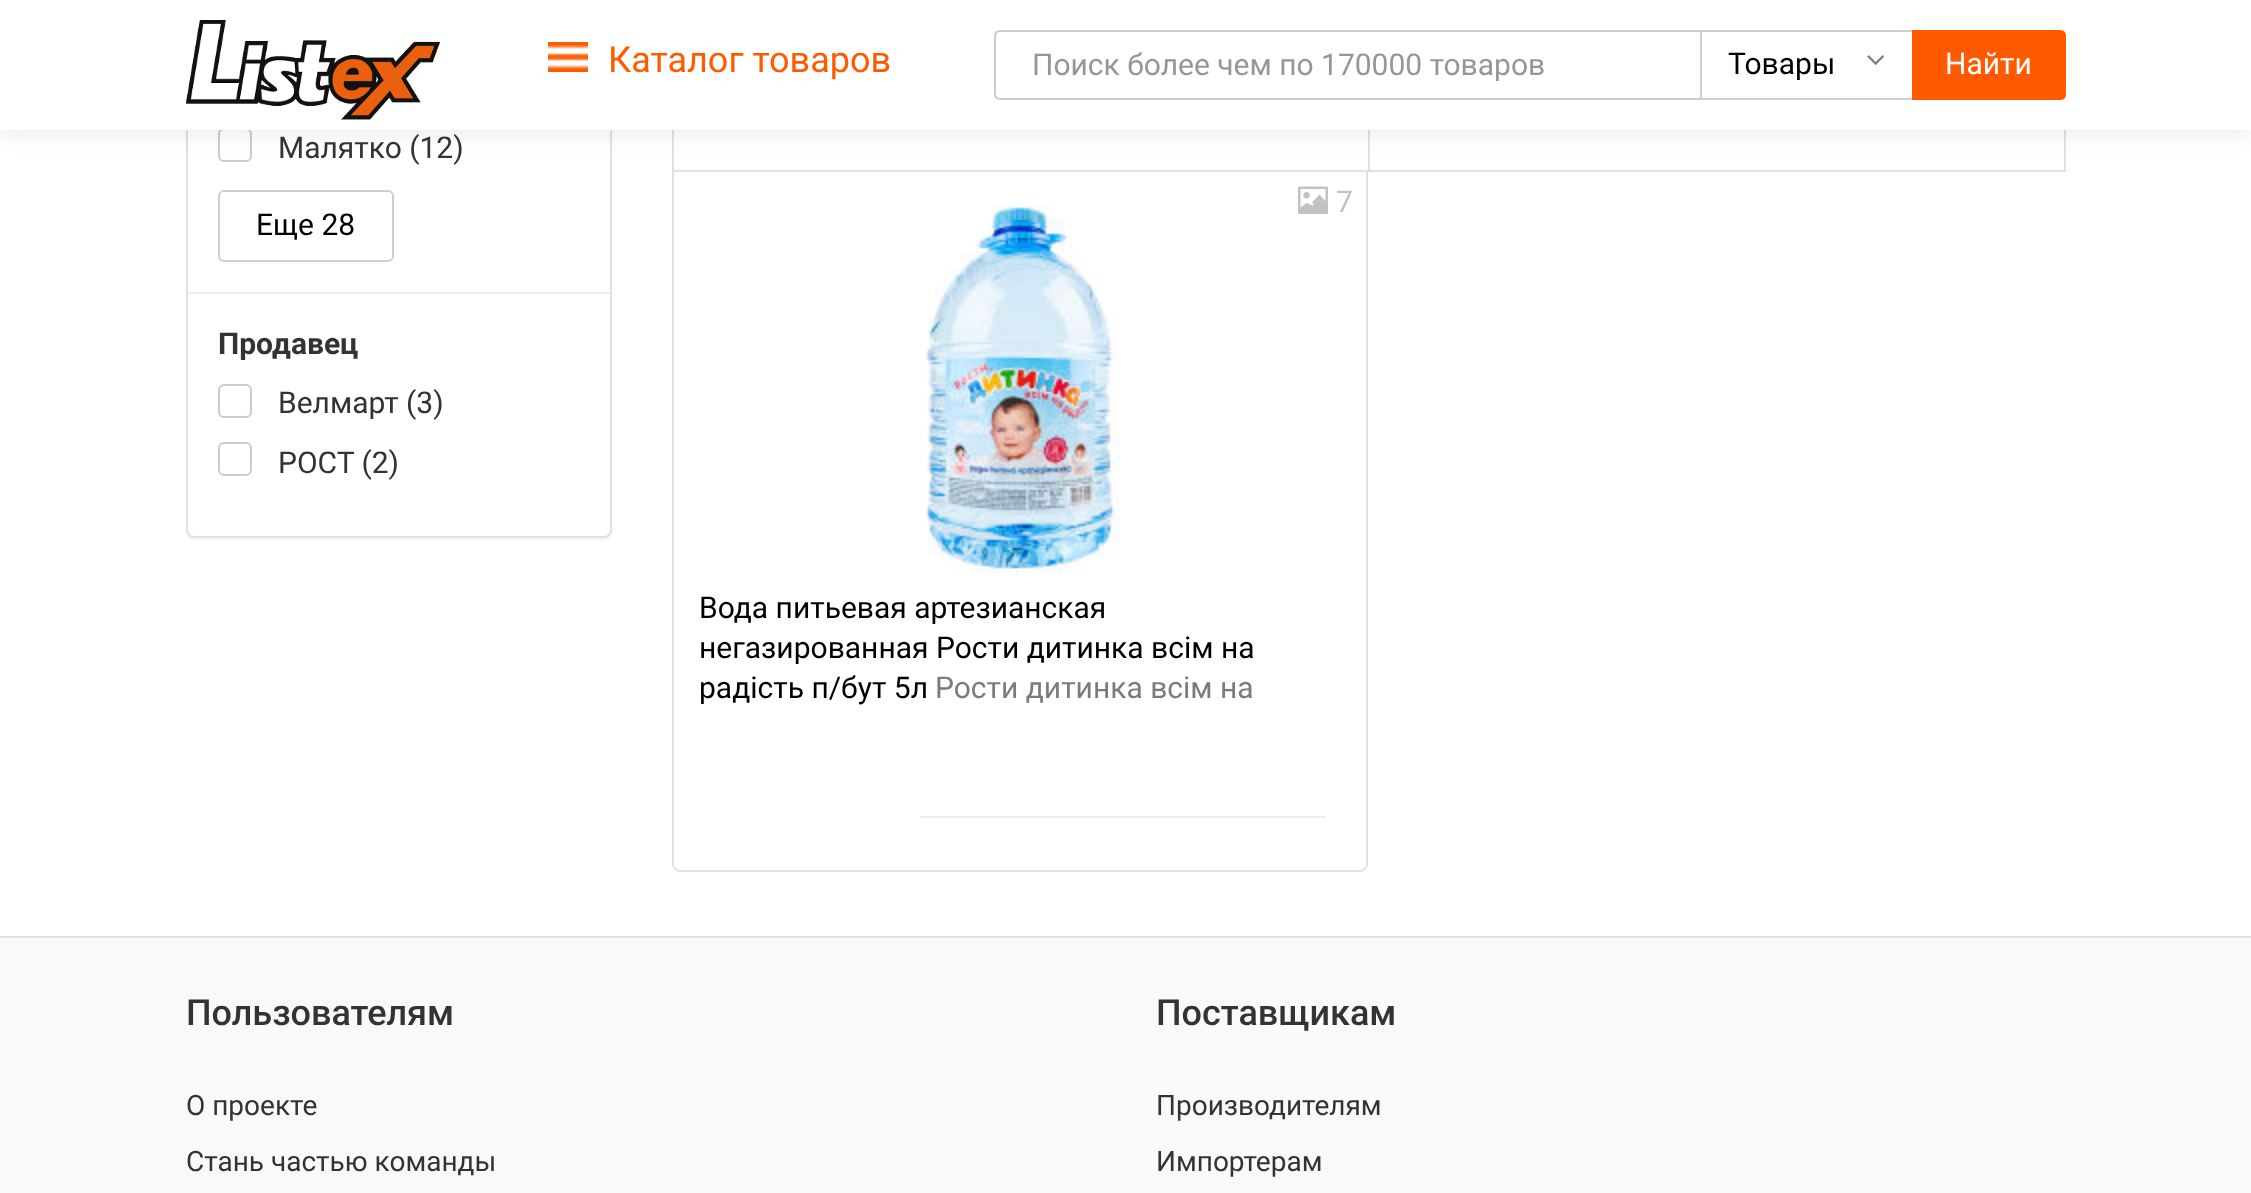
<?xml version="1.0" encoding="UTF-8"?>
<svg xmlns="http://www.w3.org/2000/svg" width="2251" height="1193">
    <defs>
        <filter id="blur1" x="-50%" y="-200%" width="200%" height="500%"><feGaussianBlur stdDeviation="1"/></filter>
        <filter id="blur2" x="-50%" y="-200%" width="200%" height="500%"><feGaussianBlur stdDeviation="10"/></filter>
    </defs>
    <rect width="100%" height="100%" fill="#FFFFFF"/>
    <rect x="186" y="-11" width="426" height="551" rx="8" fill="#000000" fill-opacity="0.05" filter="url(#blur1)"/>
    <rect x="187" y="-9" width="424" height="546" rx="7" fill="#FFFFFF" stroke="#E1E1E1" stroke-width="2"/>
    <rect x="219" y="129" width="32" height="32" rx="5" fill="none" stroke="#CCCCCC" stroke-width="2"/>
    <path d="M 680 -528 H 1368 V 172 H 672 V -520 C 672 -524 676 -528 680 -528 Z M 680 -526 H 1368 V 170 H 674 V -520 C 674 -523 677 -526 680 -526 Z" fill="#E1E1E1" fill-rule="evenodd"/>
    <rect x="1369" y="-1" width="696" height="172" fill="none" stroke="#E1E1E1" stroke-width="2"/>
    <rect x="0" y="6" width="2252" height="130" fill="#000000" fill-opacity="0.07" filter="url(#blur2)"/>
    <rect x="0" y="0" width="2251" height="130" fill="#FFFFFF"/>
    <image x="186" y="20" width="254" height="100" href="img_01.png"/>
    <image x="548" y="42" width="40" height="30" href="img_02.png"/>
    <text x="608" y="72" font-family="Roboto" font-size="36" fill="#FF5A00">Каталог товаров</text>
    <path d="M 1000 31 H 1715 V 99 H 1000 C 997 99 995 97 995 94 V 36 C 995 33 997 31 1000 31 Z" fill="none" stroke="#CCCCCC" stroke-width="2"/>
    <text x="1032" y="75" font-family="Roboto" font-size="30" fill="#969696">Поиск более чем по 170000 товаров</text>
    <rect x="1714" y="32" width="2" height="66" fill="#FFFFFF"/>
    <rect x="1701" y="31" width="218" height="68" fill="none" stroke="#CFCFCF" stroke-width="2"/>
    <text x="1728" y="74" font-family="Roboto" font-size="30" fill="#000000">Товары</text>
    <image x="1867" y="55" width="17" height="10" href="img_03.png"/>
    <path d="M 1913 31 H 2060 C 2063 31 2065 33 2065 36 V 94 C 2065 97 2063 99 2060 99 H 1913 Z" fill="#FF5A00" stroke="#FF5A00" stroke-width="2"/>
    <text x="1945" y="74" font-family="Roboto" font-size="30" fill="#FFFFFF">Найти</text>
    <text x="278" y="158" font-family="Roboto" font-size="30" fill="#333333">Малятко (12)</text>
    <rect x="219" y="191" width="174" height="70" rx="5" fill="none" stroke="#CFCFCF" stroke-width="2"/>
    <text x="256" y="235" font-family="Roboto" font-size="30" fill="#000000">Еще 28</text>
    <rect x="188" y="292" width="422" height="2" fill="#EEEEEE"/>
    <text x="218" y="354" font-family="Roboto" font-size="30" font-weight="700" fill="#333333">Продавец</text>
    <rect x="219" y="385" width="32" height="32" rx="5" fill="none" stroke="#CCCCCC" stroke-width="2"/>
    <text x="278" y="413" font-family="Roboto" font-size="30" fill="#333333">Велмарт (3)</text>
    <rect x="219" y="443" width="32" height="32" rx="5" fill="none" stroke="#CCCCCC" stroke-width="2"/>
    <text x="278" y="473" font-family="Roboto" font-size="30" fill="#333333">РОСТ (2)</text>
    <path d="M 672 172 H 1368 V 864 C 1368 868 1364 872 1360 872 H 680 C 676 872 672 868 672 864 Z M 674 172 H 1366 V 864 C 1366 867 1363 870 1360 870 H 680 C 677 870 674 867 674 864 Z" fill="#E1E1E1" fill-rule="evenodd"/>
    <image x="1298" y="186" width="30" height="28" href="img_04.png"/>
    <text x="1336" y="212" font-family="Roboto" font-size="30" fill="#C2C2C2">7</text>
    <image x="925" y="204" width="195" height="369" href="img_05.png"/>
    <text font-family="Roboto" font-size="30" fill="#000000">
        <tspan x="699" y="618">Вода питьевая артезианская</tspan>
        <tspan x="699" y="658">негазированная Рости дитинка всім на</tspan>
        <tspan x="699" y="698">радість п/бут 5л</tspan>
    </text>
    <text x="935" y="698" font-family="Roboto" font-size="30" fill="#7B7B7B">Рости дитинка всім на</text>
    <rect x="920" y="816" width="406" height="2" fill="#EEEEEE"/>
    <rect x="0" y="938" width="2251" height="255" fill="#F9F9F9"/>
    <rect x="0" y="936" width="2251" height="2" fill="#E1E1E1"/>
    <text x="186" y="1025" font-family="Roboto" font-size="36" font-weight="500" fill="#333333">Пользователям</text>
    <text x="186" y="1115" font-family="Roboto" font-size="28" fill="#333333">О проекте</text>
    <text x="186" y="1171" font-family="Roboto" font-size="28" fill="#333333">Стань частью команды</text>
    <text x="1156" y="1025" font-family="Roboto" font-size="36" font-weight="500" fill="#333333">Поставщикам</text>
    <text x="1156" y="1115" font-family="Roboto" font-size="28" fill="#333333">Производителям</text>
    <text x="1156" y="1171" font-family="Roboto" font-size="28" fill="#333333">Импортерам</text>
</svg>
